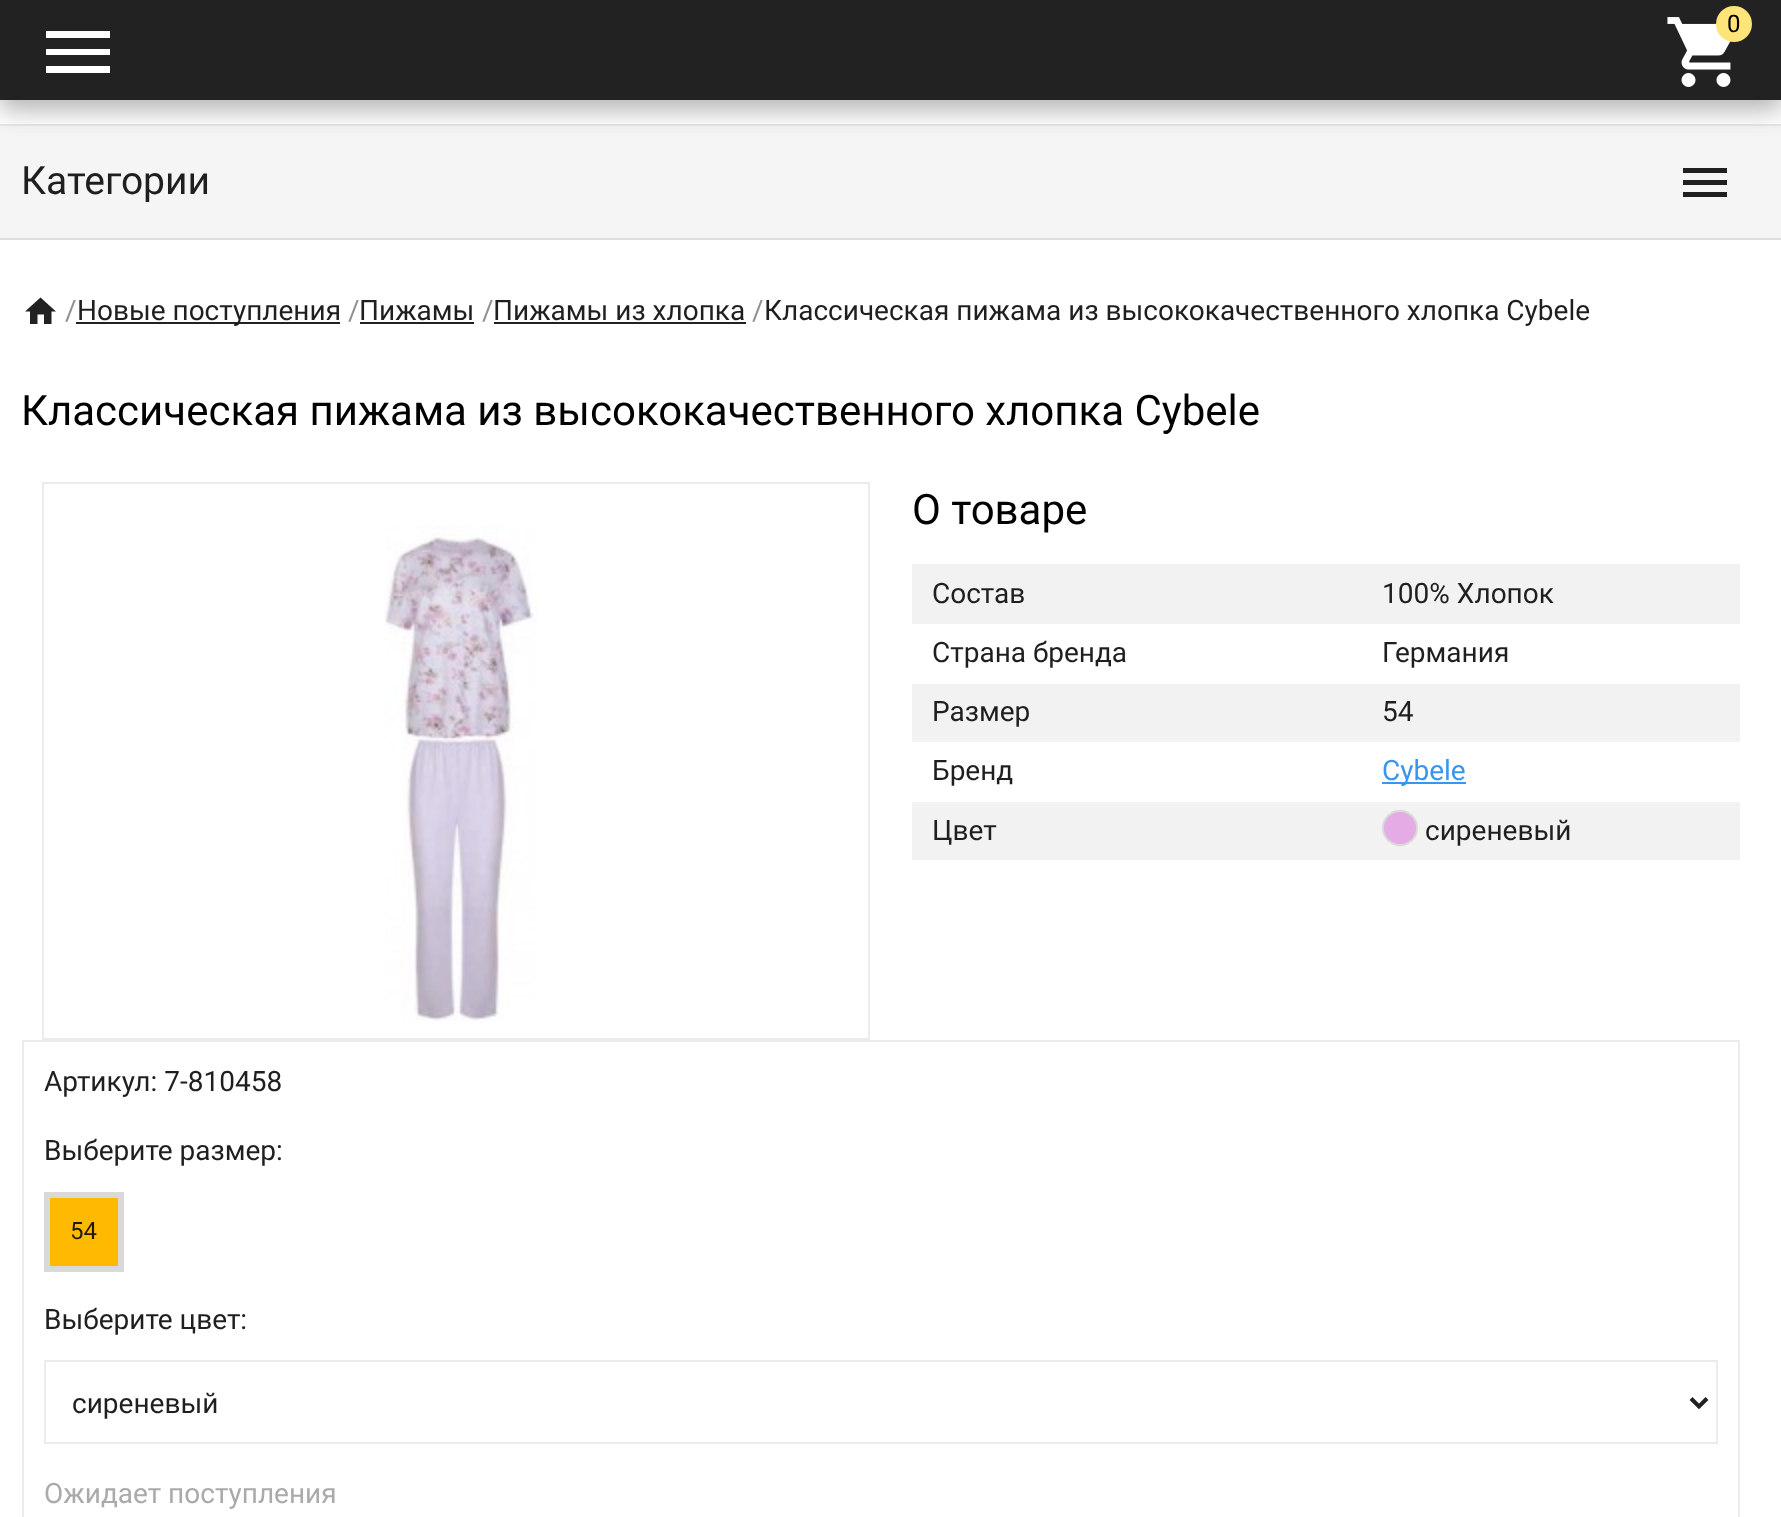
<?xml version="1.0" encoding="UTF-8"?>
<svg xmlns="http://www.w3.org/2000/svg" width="1781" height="1517">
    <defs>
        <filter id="blur1" x="-50%" y="-200%" width="200%" height="500%"><feGaussianBlur stdDeviation="15"/></filter>
        <filter id="blur2" x="-50%" y="-200%" width="200%" height="500%"><feGaussianBlur stdDeviation="11"/></filter>
    </defs>
    <rect width="100%" height="100%" fill="#FFFFFF"/>
    <rect x="0" y="124" width="1781" height="2" fill="#E7E7E7"/>
    <rect x="0" y="126" width="1781" height="112" fill="#F5F5F5"/>
    <rect x="0" y="8" width="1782" height="100" fill="#000000" fill-opacity="0.15" filter="url(#blur1)"/>
    <rect x="0" y="10" width="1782" height="100" fill="#000000" fill-opacity="0.18" filter="url(#blur2)"/>
    <rect x="0" y="0" width="1781" height="100" fill="#222222"/>
    <image x="1667" y="17" width="64" height="70" href="img_01.png"/>
    <circle cx="1734" cy="24" r="18" fill="#FFE47A"/>
    <text x="1727" y="32" font-family="Roboto" font-size="24" fill="#000000">0</text>
    <path d="M 46 31 H 110 V 38 H 46 Z M 46 55 V 49 H 110 V 55 Z M 46 73 V 66 H 110 V 73 Z" fill="#FFFFFF"/>
    <rect x="0" y="238" width="1781" height="2" fill="#DEDEDE"/>
    <text x="21" y="194" font-family="Roboto" font-size="39" fill="#1F1F1F">Категории</text>
    <path d="M 1683 168 H 1727 V 173 H 1683 Z M 1683 185 V 180 H 1727 V 185 Z M 1683 197 V 192 H 1727 V 197 Z" fill="#202020"/>
    <path d="M 37.5 324 H 30 V 311.5 H 25 L 40.5 297.5 L 56 311.5 H 51.5 V 324 H 44 V 314.5 H 37.5 Z" fill="#222222"/>
    <text x="65" y="320" font-family="Roboto" font-size="28" fill="#919191">/</text>
    <rect x="76" y="322" width="264" height="2" fill="#222222"/>
    <text x="77" y="320" font-family="Roboto" font-size="28" fill="#1F1F1F">Новые поступления</text>
    <text x="348" y="320" font-family="Roboto" font-size="28" fill="#919191">/</text>
    <text x="359" y="320" font-family="Roboto" font-size="28" fill="#1F1F1F">Пижамы</text>
    <rect x="360" y="322" width="114" height="2" fill="#222222"/>
    <text x="482" y="320" font-family="Roboto" font-size="28" fill="#919191">/</text>
    <text x="493" y="320" font-family="Roboto" font-size="28" fill="#1F1F1F">Пижамы из хлопка</text>
    <rect x="494" y="322" width="252" height="2" fill="#222222"/>
    <text x="752" y="320" font-family="Roboto" font-size="28" fill="#919191">/</text>
    <text x="764" y="320" font-family="Roboto" font-size="28" fill="#1F1F1F">Классическая пижама из высококачественного хлопка Cybele</text>
    <text x="21" y="425" font-family="Roboto" font-size="42" fill="#000000">Классическая пижама из высококачественного хлопка Cybele</text>
    <rect x="43" y="483" width="826" height="556" fill="none" stroke="#EBEBEB" stroke-width="2"/>
    <image x="385" y="526" width="153" height="495" href="img_02.png"/>
    <text x="912" y="524" font-family="Roboto" font-size="42" fill="#000000">О товаре</text>
    <rect x="912" y="564" width="828" height="60" fill="#F2F2F2"/>
    <text x="932" y="603" font-family="Roboto" font-size="28" fill="#1F1F1F">Состав</text>
    <text x="1382" y="603" font-family="Roboto" font-size="28" fill="#1F1F1F">100% Хлопок</text>
    <text x="932" y="662" font-family="Roboto" font-size="28" fill="#1F1F1F">Страна бренда</text>
    <text x="1382" y="662" font-family="Roboto" font-size="28" fill="#1F1F1F">Германия</text>
    <rect x="912" y="684" width="828" height="58" fill="#F2F2F2"/>
    <text x="932" y="721" font-family="Roboto" font-size="28" fill="#1F1F1F">Размер</text>
    <text x="1382" y="721" font-family="Roboto" font-size="28" fill="#1F1F1F">54</text>
    <text x="932" y="780" font-family="Roboto" font-size="28" fill="#1F1F1F">Бренд</text>
    <rect x="1382" y="782" width="84" height="2" fill="#3896F0"/>
    <text x="1382" y="780" font-family="Roboto" font-size="28" fill="#3896F0">Cybele</text>
    <rect x="912" y="802" width="828" height="58" fill="#F2F2F2"/>
    <text x="932" y="840" font-family="Roboto" font-size="28" fill="#1F1F1F">Цвет</text>
    <circle cx="1400" cy="828" r="17" fill="#E5ABE5" stroke="#D9D9D9" stroke-width="2"/>
    <text x="1425" y="840" font-family="Roboto" font-size="28" fill="#1F1F1F">сиреневый</text>
    <rect x="23" y="1041" width="1716" height="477" fill="none" stroke="#EBEBEB" stroke-width="2"/>
    <text x="44" y="1091" font-family="Roboto" font-size="28" fill="#1F1F1F">Артикул: 7-810458</text>
    <text x="44" y="1160" font-family="Roboto" font-size="28" fill="#1F1F1F">Выберите размер:</text>
    <rect x="48" y="1196" width="72" height="72" fill="#FFBA00" stroke="#D9D9D9" stroke-width="4"/>
    <rect x="45" y="1193" width="78" height="78" fill="none" stroke="#D9D9D9" stroke-width="2"/>
    <text x="70" y="1239" font-family="Roboto" font-size="24" fill="#211800">54</text>
    <text x="44" y="1329" font-family="Roboto" font-size="28" fill="#1F1F1F">Выберите цвет:</text>
    <rect x="45" y="1361" width="1672" height="82" fill="none" stroke="#EBEBEB" stroke-width="2"/>
    <path d="M 1691 1398.5 L 1699 1406.5 L 1707 1398.5" fill="none" stroke="#212121" stroke-width="4"/>
    <text x="72" y="1413" font-family="Roboto" font-size="28" fill="#1F1F1F">сиреневый</text>
    <text x="44" y="1503" font-family="Roboto" font-size="28" fill="#AAAAAA">Ожидает поступления</text>
</svg>
